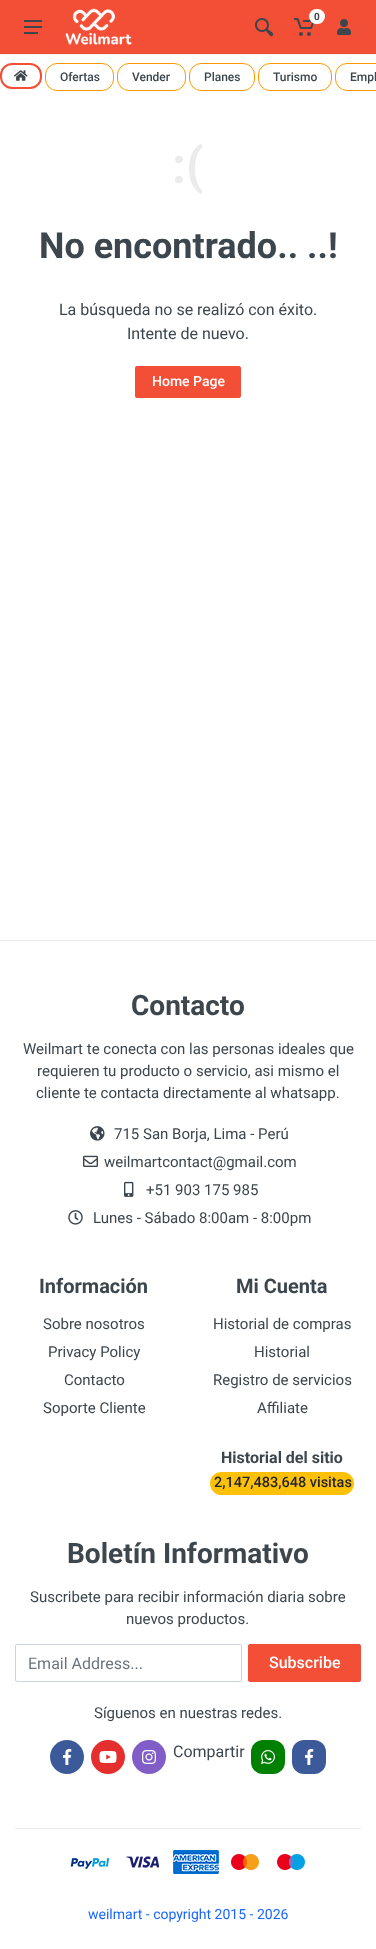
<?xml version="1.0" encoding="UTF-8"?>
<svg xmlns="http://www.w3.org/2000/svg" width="376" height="1949">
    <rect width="100%" height="100%" fill="#FFFFFF"/>
    <rect x="0" y="54" width="376" height="1" fill="#F5F5F5"/>
    <rect x="0" y="0" width="376" height="53" fill="#F34F36"/>
    <rect x="0" y="53" width="376" height="1" fill="#E94C34"/>
    <image x="65" y="8" width="67" height="37" href="img_01.png"/>
    <image x="294" y="18" width="20" height="18" href="img_02.png"/>
    <rect x="309" y="9" width="16" height="15" rx="7.5" fill="#FFFFFF"/>
    <text x="314" y="20" font-family="Roboto" font-size="10" font-weight="700" fill="#3D464D">0</text>
    <image x="255" y="18" width="19" height="19" href="img_03.png"/>
    <image x="337" y="19" width="14" height="16" href="img_04.png"/>
    <image x="24" y="20" width="18" height="14" href="img_05.png"/>
    <rect x="1" y="64" width="40" height="24" rx="11" fill="none" stroke="#F34F36" stroke-width="2"/>
    <image x="14" y="70" width="14" height="11" href="img_06.png"/>
    <rect x="45.5" y="63.5" width="68" height="27" rx="11.5" fill="none" stroke="#FF9800"/>
    <text x="60" y="81" font-family="Roboto" font-size="12" font-weight="500" fill="#3D464D">Ofertas</text>
    <rect x="117.5" y="63.5" width="68" height="27" rx="11.5" fill="none" stroke="#FF9800"/>
    <text x="132" y="81" font-family="Roboto" font-size="12" font-weight="500" fill="#3D464D">Vender</text>
    <rect x="189.5" y="63.5" width="65" height="27" rx="11.5" fill="none" stroke="#FF9800"/>
    <text x="204" y="81" font-family="Roboto" font-size="12" font-weight="500" fill="#3D464D">Planes</text>
    <rect x="258.5" y="63.5" width="73" height="27" rx="11.5" fill="none" stroke="#FF9800"/>
    <text x="273" y="81" font-family="Roboto" font-size="12" font-weight="500" fill="#3D464D">Turismo</text>
    <rect x="335.5" y="63.5" width="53" height="27" rx="11.5" fill="none" stroke="#FF9800"/>
    <text x="350" y="81" font-family="Roboto" font-size="12" font-weight="500" fill="#3D464D">Empl</text>
    <text x="172" y="183" font-family="Roboto" font-size="50" font-weight="700" fill="#EBEBEB">:(</text>
    <text x="39" y="258" font-family="Roboto" font-size="36" font-weight="700" fill="#3D464D">No encontrado.. ..!</text>
    <text x="59" y="315" font-family="Roboto" font-size="16" fill="#3D464D">La búsqueda no se realizó con éxito.</text>
    <text x="127" y="339" font-family="Roboto" font-size="16" fill="#3D464D">Intente de nuevo.</text>
    <rect x="135.5" y="366.5" width="105" height="31" rx="1.5" fill="#F34F36" stroke="#F34F36"/>
    <text x="152" y="386" font-family="Roboto" font-size="14" font-weight="500" fill="#FFFFFF">Home Page</text>
    <rect x="0" y="940" width="376" height="1" fill="#EBEBEB"/>
    <text x="131" y="1015" font-family="Roboto" font-size="28" font-weight="700" fill="#3D464D">Contacto</text>
    <text x="23" y="1054" font-family="Roboto" font-size="15" fill="#3D464D">Weilmart te conecta con las personas ideales que</text>
    <text x="37" y="1076" font-family="Roboto" font-size="15" fill="#3D464D">requieren tu producto o servicio, asi mismo el</text>
    <text x="36" y="1098" font-family="Roboto" font-size="15" fill="#3D464D">cliente te contacta directamente al whatsapp.</text>
    <image x="90" y="1126" width="15" height="15" href="img_07.png"/>
    <text x="114" y="1139" font-family="Roboto" font-size="15" fill="#3D464D">715 San Borja, Lima - Perú</text>
    <image x="83" y="1155" width="15" height="12" href="img_08.png"/>
    <text x="104" y="1167" font-family="Roboto" font-size="15" fill="#3D464D">weilmartcontact@gmail.com</text>
    <image x="124" y="1181" width="10" height="16" href="img_09.png"/>
    <text x="146" y="1195" font-family="Roboto" font-size="15" fill="#3D464D">+51 903 175 985</text>
    <image x="68" y="1210" width="15" height="15" href="img_10.png"/>
    <text x="93" y="1223" font-family="Roboto" font-size="15" fill="#3D464D">Lunes - Sábado 8:00am - 8:00pm</text>
    <text x="39" y="1293" font-family="Roboto" font-size="20" font-weight="700" fill="#3D464D">Información</text>
    <text x="43" y="1329" font-family="Roboto" font-size="15" fill="#3D464D">Sobre nosotros</text>
    <text x="48" y="1357" font-family="Roboto" font-size="15" fill="#3D464D">Privacy Policy</text>
    <text x="64" y="1385" font-family="Roboto" font-size="15" fill="#3D464D">Contacto</text>
    <text x="43" y="1413" font-family="Roboto" font-size="15" fill="#3D464D">Soporte Cliente</text>
    <text x="236" y="1293" font-family="Roboto" font-size="20" font-weight="700" fill="#3D464D">Mi Cuenta</text>
    <text x="213" y="1329" font-family="Roboto" font-size="15" fill="#3D464D">Historial de compras</text>
    <text x="254" y="1357" font-family="Roboto" font-size="15" fill="#3D464D">Historial</text>
    <text x="213" y="1385" font-family="Roboto" font-size="15" fill="#3D464D">Registro de servicios</text>
    <text x="257" y="1413" font-family="Roboto" font-size="15" fill="#3D464D">Affiliate</text>
    <text x="221" y="1463" font-family="Roboto" font-size="16" font-weight="700" fill="#3D464D">Historial del sitio</text>
    <rect x="210" y="1472" width="144" height="23" rx="11.5" fill="#FFC107"/>
    <text x="214" y="1487" font-family="Roboto" font-size="14.5" font-weight="500" fill="#212529">2,147,483,648 visitas</text>
    <text x="67" y="1563" font-family="Roboto" font-size="28" font-weight="700" fill="#3D464D">Boletín Informativo</text>
    <text x="30" y="1602" font-family="Roboto" font-size="15" fill="#3D464D">Suscribete para recibir información diaria sobre</text>
    <text x="126" y="1624" font-family="Roboto" font-size="15" fill="#3D464D">nuevos productos.</text>
    <rect x="15.5" y="1644.5" width="226" height="37" rx="1.5" fill="none" stroke="#CED4DA"/>
    <text x="28" y="1669" font-family="Roboto" font-size="16" fill="#6C757D">Email Address...</text>
    <rect x="248.5" y="1644.5" width="112" height="37" rx="1.5" fill="#F34F36" stroke="#F34F36"/>
    <text x="269" y="1668" font-family="Roboto" font-size="16" font-weight="500" fill="#FFFFFF">Subscribe</text>
    <text x="94" y="1718" font-family="Roboto" font-size="15" fill="#3D464D">Síguenos en nuestras redes.</text>
    <circle cx="67" cy="1757" r="17" fill="#3C5A99"/>
    <image x="63" y="1749" width="9" height="16" href="img_11.png"/>
    <circle cx="108" cy="1757" r="17" fill="#E52E2E"/>
    <image x="99" y="1751" width="18" height="12" href="img_12.png"/>
    <circle cx="149" cy="1757" r="17" fill="#815DC7"/>
    <image x="142" y="1750" width="14" height="14" href="img_13.png"/>
    <text x="173" y="1757" font-family="Roboto" font-size="16" fill="#3D464D">Compartir</text>
    <rect x="251" y="1740" width="34" height="34" rx="12" fill="#008000"/>
    <image x="261" y="1750" width="14" height="14" href="img_14.png"/>
    <rect x="292" y="1740" width="34" height="34" rx="12" fill="#3C5A99"/>
    <image x="305" y="1749" width="9" height="16" href="img_11.png"/>
    <rect x="15" y="1828" width="346" height="1" fill="#EBEBEB"/>
    <image x="70" y="1850" width="235" height="24" href="img_15.png"/>
    <text x="88" y="1919" font-family="Roboto" font-size="14" fill="#1A66FF">weilmart - copyright 2015 - 2026</text>
</svg>
